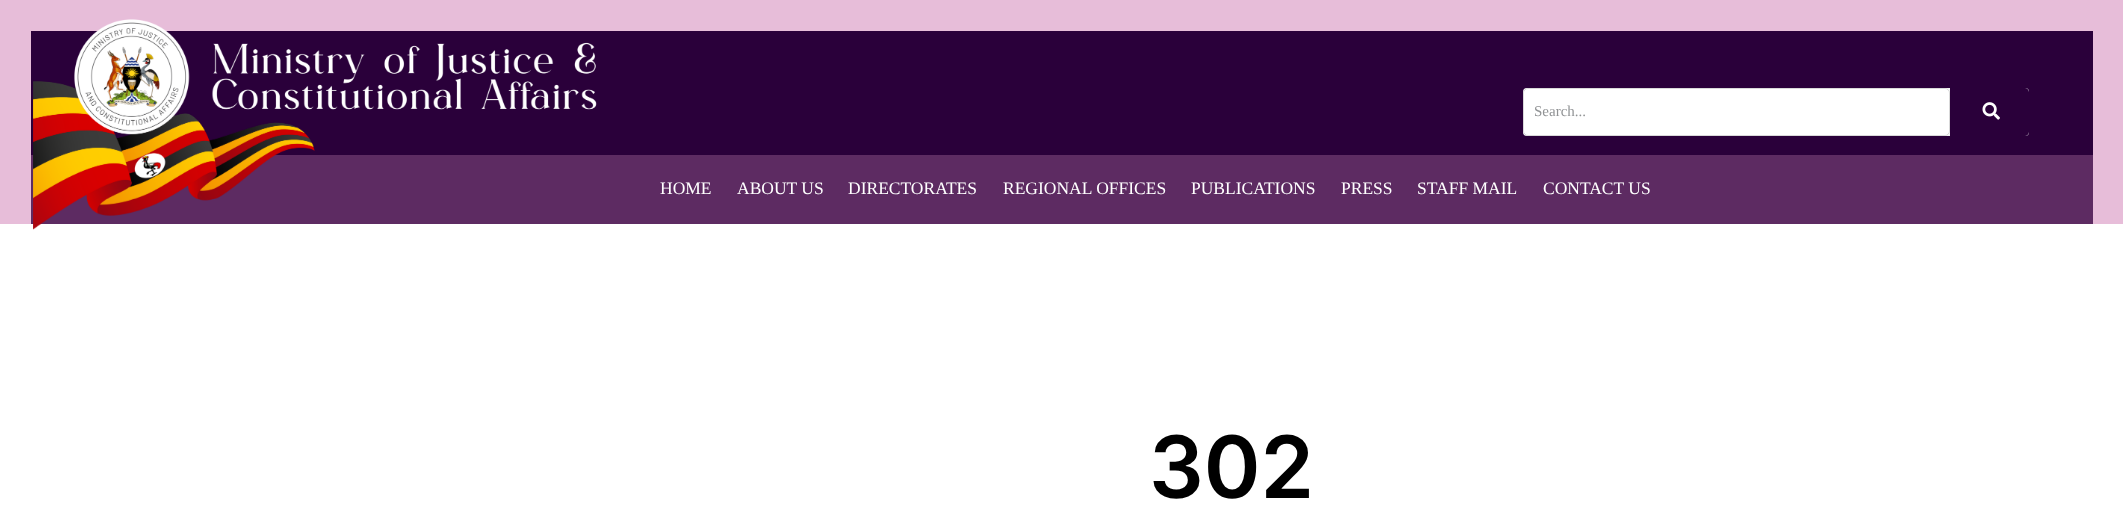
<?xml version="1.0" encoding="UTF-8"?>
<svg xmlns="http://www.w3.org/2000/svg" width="2123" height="509">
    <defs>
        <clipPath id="clip1"><rect x="1523" y="88" width="506" height="48" rx="4"/></clipPath>
    </defs>
    <rect width="100%" height="100%" fill="#FFFFFF"/>
    <rect x="31" y="31" width="2062" height="124" fill="#2A003A"/>
    <rect x="31" y="0" width="2062" height="31" fill="#E7BDD9"/>
    <rect x="2093" y="0" width="30" height="224" fill="#E7BDD9"/>
    <rect x="0" y="0" width="31" height="224" fill="#E7BDD9"/>
    <rect x="1523" y="88" width="506" height="48" rx="4" fill="#F1F2F3"/>
    <g clip-path="url(#clip1)">
        <rect x="1523" y="88" width="427" height="48" rx="5" fill="#FFFFFF"/>
    </g>
    <rect x="1523.5" y="88.5" width="426" height="47" rx="4.5" fill="none" stroke="#000000" stroke-opacity="0.15"/>
    <text x="1534" y="116" font-family="Liberation Serif" font-size="15" fill="#919395">Search...</text>
    <path d="M 1950 88 H 2025 C 2027 88 2029 90 2029 92 V 132 C 2029 134 2027 136 2025 136 H 1950 Z" fill="#2A003A"/>
    <image x="1982" y="102" width="18" height="18" href="img_01.png"/>
    <rect x="31" y="155" width="2062" height="69" fill="#5D2B62"/>
    <image x="33" y="19" width="564" height="211" href="img_02.png"/>
    <text x="660" y="194" font-family="Liberation Serif" font-size="17.5" fill="#FFFFFF">HOME</text>
    <text x="737" y="194" font-family="Liberation Serif" font-size="17.5" fill="#FFFFFF">ABOUT US</text>
    <text x="848" y="194" font-family="Liberation Serif" font-size="17.5" fill="#FFFFFF">DIRECTORATES</text>
    <text x="1003" y="194" font-family="Liberation Serif" font-size="17.5" fill="#FFFFFF">REGIONAL OFFICES</text>
    <text x="1191" y="194" font-family="Liberation Serif" font-size="17.5" fill="#FFFFFF">PUBLICATIONS</text>
    <text x="1341" y="194" font-family="Liberation Serif" font-size="17.5" fill="#FFFFFF">PRESS</text>
    <text x="1417" y="194" font-family="Liberation Serif" font-size="17.5" fill="#FFFFFF">STAFF MAIL</text>
    <text x="1543" y="194" font-family="Liberation Serif" font-size="17.5" fill="#FFFFFF">CONTACT US</text>
    <text x="1149" y="498" font-family="Inter" font-size="86" font-weight="600" fill="#000000">302</text>
</svg>
